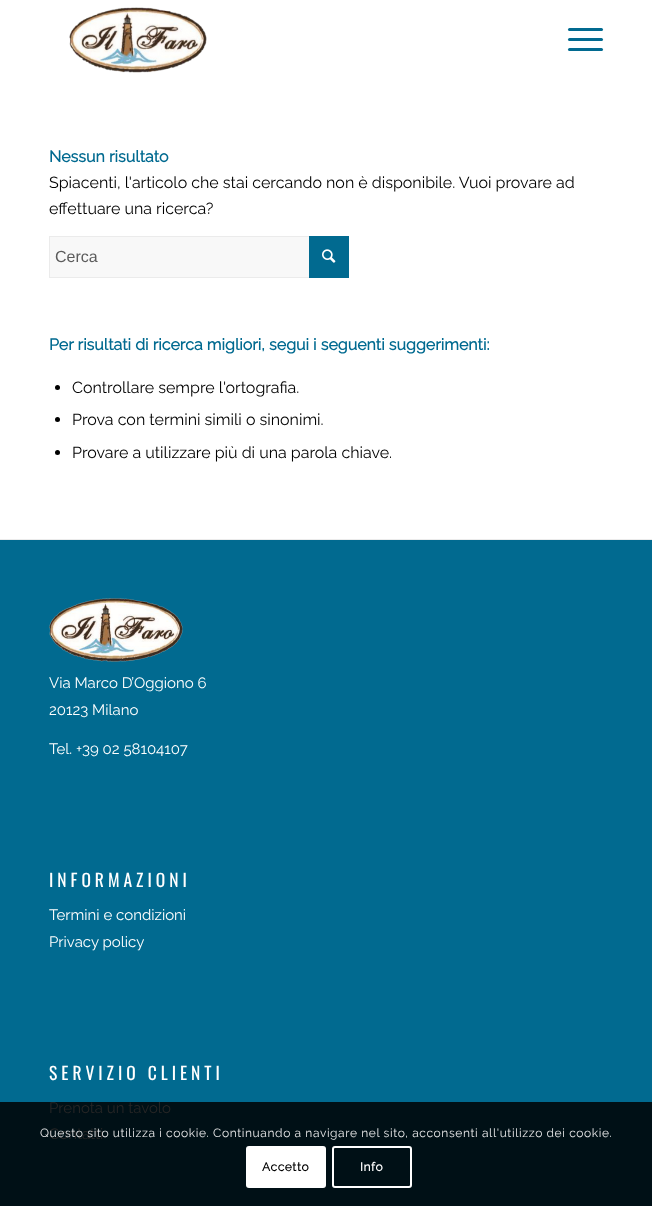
<?xml version="1.0" encoding="UTF-8"?>
<svg xmlns="http://www.w3.org/2000/svg" width="652" height="1206">
    <rect width="100%" height="100%" fill="#FFFFFF"/>
    <image x="69" y="7" width="138" height="66" href="img_01.png"/>
    <rect x="568" y="38" width="35" height="3" rx="1.5" fill="#016A90"/>
    <rect x="568" y="28" width="35" height="3" rx="1.5" fill="#016A90"/>
    <rect x="568" y="48" width="35" height="3" rx="1.5" fill="#016A90"/>
    <text x="49" y="162" font-family="Raleway" font-size="16" font-weight="700" fill="#016A90">Nessun risultato</text>
    <text font-family="Raleway" font-size="16" font-weight="100" fill="#000000">
        <tspan x="49" y="188">Spiacenti, l'articolo che stai cercando non è disponibile. Vuoi provare ad</tspan>
        <tspan x="49" y="214">effettuare una ricerca?</tspan>
    </text>
    <rect x="50" y="237" width="259" height="40" fill="#F8F8F8"/>
    <rect x="49.5" y="236.5" width="299" height="41" fill="none" stroke="#EBEBEB"/>
    <text x="55" y="262" font-family="Liberation Sans" font-size="16" fill="#5C5C5C">Cerca</text>
    <rect x="309" y="236" width="40" height="42" fill="#016A90"/>
    <image x="322" y="249" width="14" height="14" href="img_02.png"/>
    <text x="49" y="350" font-family="Raleway" font-size="16" font-weight="700" fill="#016A90">Per risultati di ricerca migliori, segui i seguenti suggerimenti:</text>
    <circle cx="57.5" cy="387.5" r="2.5" fill="#000000"/>
    <text x="72" y="393" font-family="Raleway" font-size="16" font-weight="100" fill="#000000">Controllare sempre l'ortografia.</text>
    <circle cx="57.5" cy="419.5" r="2.5" fill="#000000"/>
    <text x="72" y="425" font-family="Raleway" font-size="16" font-weight="100" fill="#000000">Prova con termini simili o sinonimi.</text>
    <circle cx="57.5" cy="452.5" r="2.5" fill="#000000"/>
    <text x="72" y="458" font-family="Raleway" font-size="16" font-weight="100" fill="#000000">Provare a utilizzare più di una parola chiave.</text>
    <rect x="0" y="540" width="652" height="562" fill="#016A90"/>
    <rect x="0" y="1102" width="652" height="104" fill="#001016"/>
    <rect x="0" y="539" width="652" height="1" fill="#EBEBEB"/>
    <image x="49" y="598" width="134" height="64" href="img_03.png"/>
    <text font-family="Raleway" font-size="15" font-weight="100" fill="#FFFFFF">
        <tspan x="49" y="688">Via Marco D’Oggiono 6</tspan>
        <tspan x="49" y="715">20123 Milano</tspan>
    </text>
    <text x="49" y="754" font-family="Raleway" font-size="15" font-weight="100" fill="#FFFFFF">Tel. +39 02 58104107</text>
    <text x="49" y="887" font-family="Oswald" font-size="17.5" letter-spacing="4" fill="#FFFFFF">INFORMAZIONI</text>
    <text font-family="Raleway" font-size="15" font-weight="100" fill="#FFFFFF">
        <tspan x="49" y="920">Termini e condizioni</tspan>
        <tspan x="49" y="947">Privacy policy</tspan>
    </text>
    <text x="49" y="1080" font-family="Oswald" font-size="17.5" letter-spacing="4" fill="#FFFFFF">SERVIZIO CLIENTI</text>
    <text font-family="Raleway" font-size="15" font-weight="100" fill="#262626">
        <tspan x="49" y="1113">Prenota un tavolo</tspan>
        <tspan x="49" y="1139">Contatti</tspan>
    </text>
    <text x="40" y="1137" font-family="Raleway" font-size="12" font-weight="100" letter-spacing="0.6" fill="#E6E7E8">Questo sito utilizza i cookie. Continuando a navigare nel sito, acconsenti all'utilizzo dei cookie.</text>
    <rect x="246" y="1146" width="80" height="42" rx="3" fill="#FFFFFF"/>
    <text x="262" y="1171" font-family="Raleway" font-size="12" font-weight="700" letter-spacing="0.6" fill="#000000">Accetto</text>
    <rect x="333" y="1147" width="78" height="40" rx="2" fill="none" stroke="#FFFFFF" stroke-width="2"/>
    <text x="360" y="1171" font-family="Raleway" font-size="12" font-weight="700" letter-spacing="0.6" fill="#FFFFFF">Info</text>
</svg>
